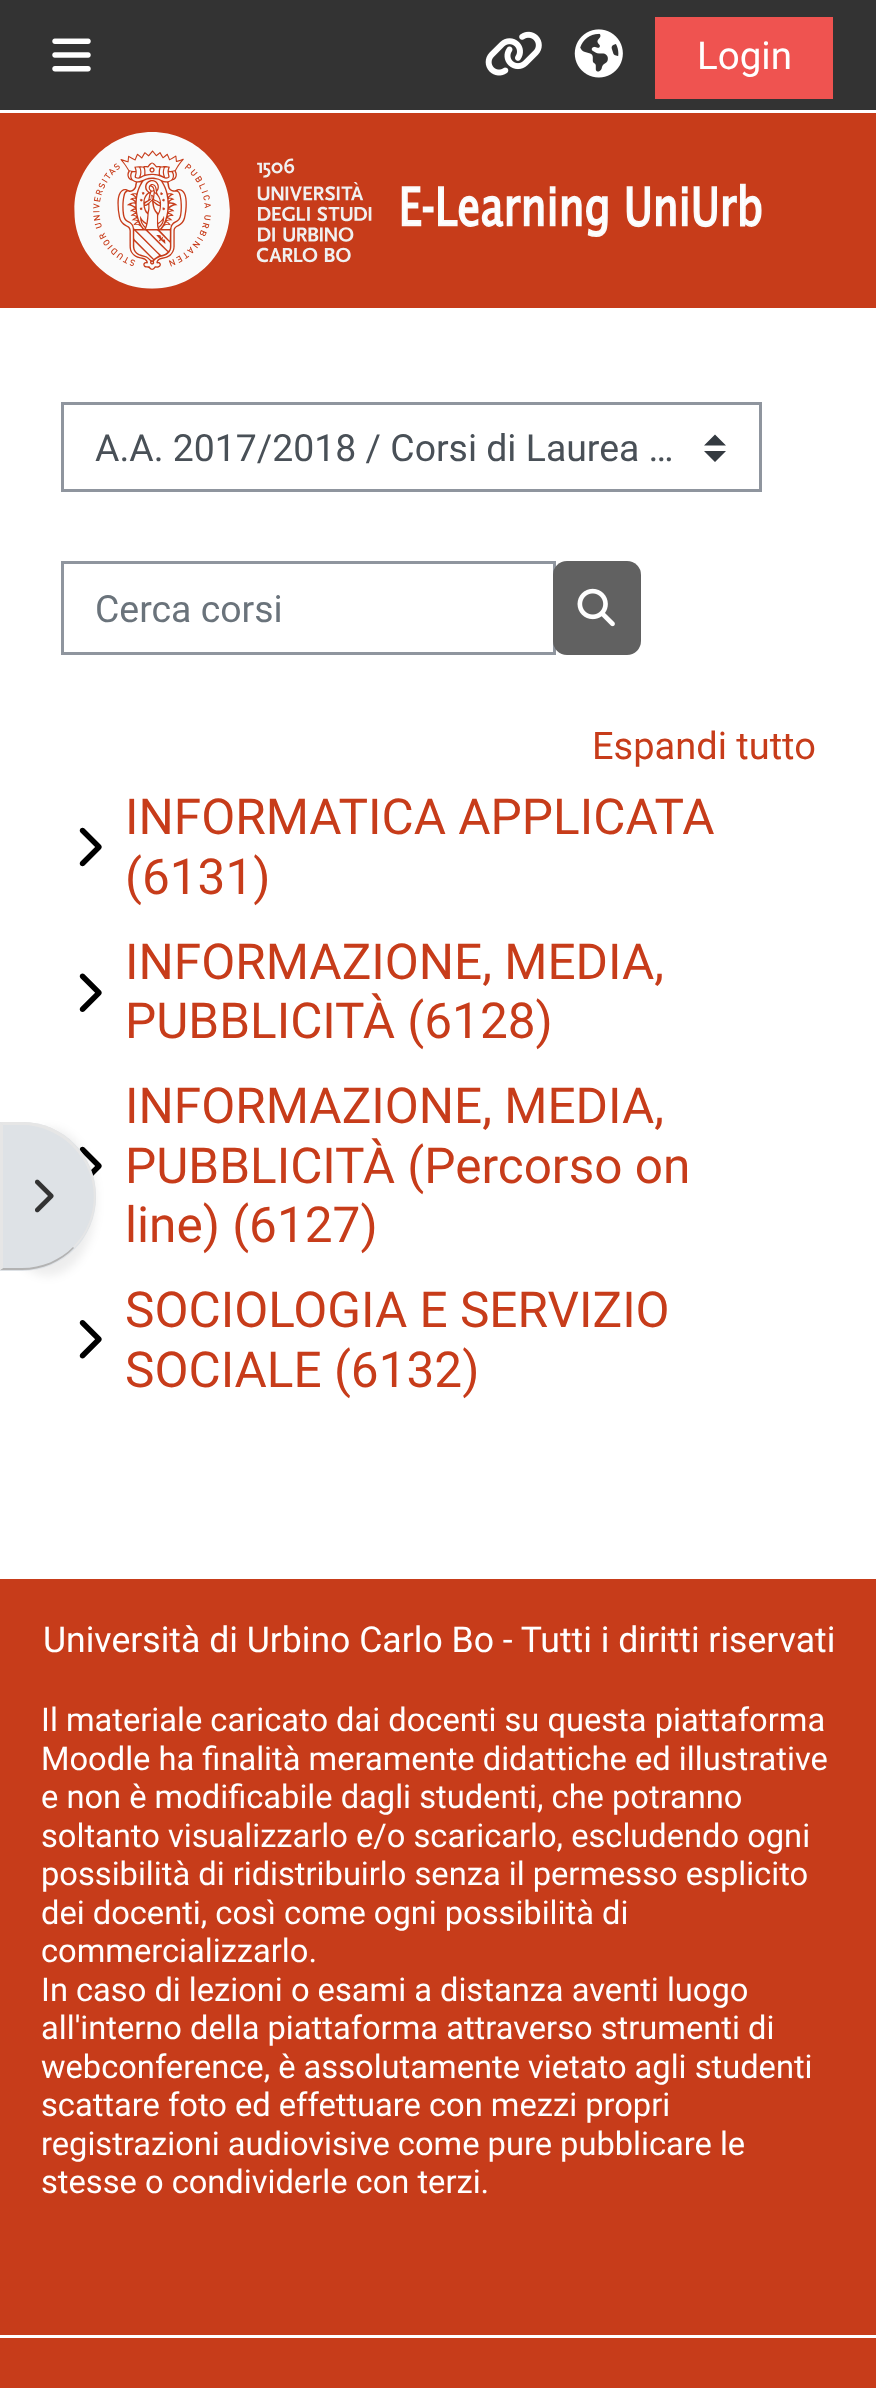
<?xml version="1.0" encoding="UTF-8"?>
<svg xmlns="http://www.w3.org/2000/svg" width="876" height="2388">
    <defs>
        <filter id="blur1" x="-50%" y="-200%" width="200%" height="500%"><feGaussianBlur stdDeviation="5"/></filter>
    </defs>
    <rect width="100%" height="100%" fill="#FFFFFF"/>
    <rect x="0" y="113" width="876" height="195" fill="#C73C1A"/>
    <rect x="0" y="0" width="876" height="110" fill="#333333"/>
    <image x="52" y="38" width="39" height="34" href="img_01.png"/>
    <image x="485" y="31" width="57" height="45" href="img_02.png"/>
    <image x="574" y="29" width="49" height="49" href="img_03.png"/>
    <rect x="655" y="17" width="178" height="82" fill="#EF5350"/>
    <text x="697" y="69" font-family="Roboto" font-size="38.5" fill="#FFFFFF">Login</text>
    <image x="74" y="132" width="688" height="157" href="img_04.png"/>
    <image x="79" y="1146" width="23" height="30" href="img_09.png"/>
    <rect x="0" y="1128" width="96" height="148" rx="74" fill="#000000" fill-opacity="0.07" filter="url(#blur1)"/>
    <path d="M 0 1122 H 22 C 63 1122 96 1155 96 1196 V 1197 C 96 1238 63 1271 22 1271 H 0 Z" fill="#DEE2E6"/>
    <path d="M 0 1122 L 3 1125 H 22 C 41 1125 59 1133 72 1146 L 74 1144 C 61 1130 43 1122 22 1122 Z" fill="#E6E6E6"/>
    <path d="M 74 1144 C 103 1173 103 1220 74 1248 L 73 1247 C 101 1219 101 1174 72 1146 Z" fill="#E6E6E6"/>
    <path d="M 74 1248 C 61 1262 42 1270 22 1270 H 0 L 3 1268 H 22 C 42 1268 60 1260 73 1247 Z" fill="#B3B3B3"/>
    <path d="M 3 1125 L 0 1122 V 1270 L 3 1268 Z" fill="#E6E6E6"/>
    <image x="35" y="1179" width="19" height="34" href="img_05.png"/>
    <path d="M 715 434.5 L 704 445.5 H 726 Z M 715 462 L 704 451 H 726 Z" fill="#343A40"/>
    <rect x="62.5" y="403.5" width="698" height="87" fill="none" stroke="#8F959E" stroke-width="3"/>
    <text x="95" y="461" font-family="Roboto" font-size="37.4" fill="#495057">A.A. 2017/2018 / Corsi di Laurea …</text>
    <rect x="62.5" y="562.5" width="492" height="91" fill="none" stroke="#8F959E" stroke-width="3"/>
    <text x="95" y="622" font-family="Roboto" font-size="37.4" fill="#6A737B">Cerca corsi</text>
    <rect x="553" y="561" width="88" height="94" rx="14" fill="#616161"/>
    <image x="577" y="588" width="38" height="39" href="img_06.png"/>
    <text x="592" y="759" font-family="Roboto" font-size="38" fill="#C73C1A">Espandi tutto</text>
    <image x="79" y="827" width="23" height="40" href="img_07.png"/>
    <text font-family="Roboto" font-size="49.5" fill="#C73C1A">
        <tspan x="125" y="834">INFORMATICA APPLICATA</tspan>
        <tspan x="125" y="894">(6131)</tspan>
    </text>
    <image x="79" y="973" width="23" height="39" href="img_08.png"/>
    <text font-family="Roboto" font-size="49.5" fill="#C73C1A">
        <tspan x="125" y="979">INFORMAZIONE, MEDIA,</tspan>
        <tspan x="125" y="1038">PUBBLICITÀ (6128)</tspan>
        <tspan x="125" y="1123">INFORMAZIONE, MEDIA,</tspan>
        <tspan x="125" y="1183">PUBBLICITÀ (Percorso on</tspan>
        <tspan x="125" y="1242">line) (6127)</tspan>
    </text>
    <image x="79" y="1320" width="23" height="39" href="img_10.png"/>
    <text font-family="Roboto" font-size="49.5" fill="#C73C1A">
        <tspan x="125" y="1327">SOCIOLOGIA E SERVIZIO</tspan>
        <tspan x="125" y="1387">SOCIALE (6132)</tspan>
    </text>
    <rect x="0" y="1579" width="876" height="809" fill="#C73C1A"/>
    <text x="43" y="1652" font-family="Roboto" font-size="35.6" fill="#FFFFFF">Università di Urbino Carlo Bo - Tutti i diritti riservati</text>
    <text font-family="Roboto" font-size="32.65" fill="#FFFFFF">
        <tspan x="41" y="1731">Il materiale caricato dai docenti su questa piattaforma</tspan>
        <tspan x="41" y="1770">Moodle ha finalità meramente didattiche ed illustrative</tspan>
        <tspan x="41" y="1808">e non è modificabile dagli studenti, che potranno</tspan>
        <tspan x="41" y="1847">soltanto visualizzarlo e/o scaricarlo, escludendo ogni</tspan>
        <tspan x="41" y="1885">possibilità di ridistribuirlo senza il permesso esplicito</tspan>
        <tspan x="41" y="1924">dei docenti, così come ogni possibilità di</tspan>
        <tspan x="41" y="1962">commercializzarlo.</tspan>
        <tspan x="41" y="2001">In caso di lezioni o esami a distanza aventi luogo</tspan>
        <tspan x="41" y="2039">all'interno della piattaforma attraverso strumenti di</tspan>
        <tspan x="41" y="2078">webconference, è assolutamente vietato agli studenti</tspan>
        <tspan x="41" y="2116">scattare foto ed effettuare con mezzi propri</tspan>
        <tspan x="41" y="2155">registrazioni audiovisive come pure pubblicare le</tspan>
        <tspan x="41" y="2193">stesse o condividerle con terzi.</tspan>
    </text>
    <rect x="0" y="2335" width="876" height="3" fill="#FFFFFF"/>
</svg>
